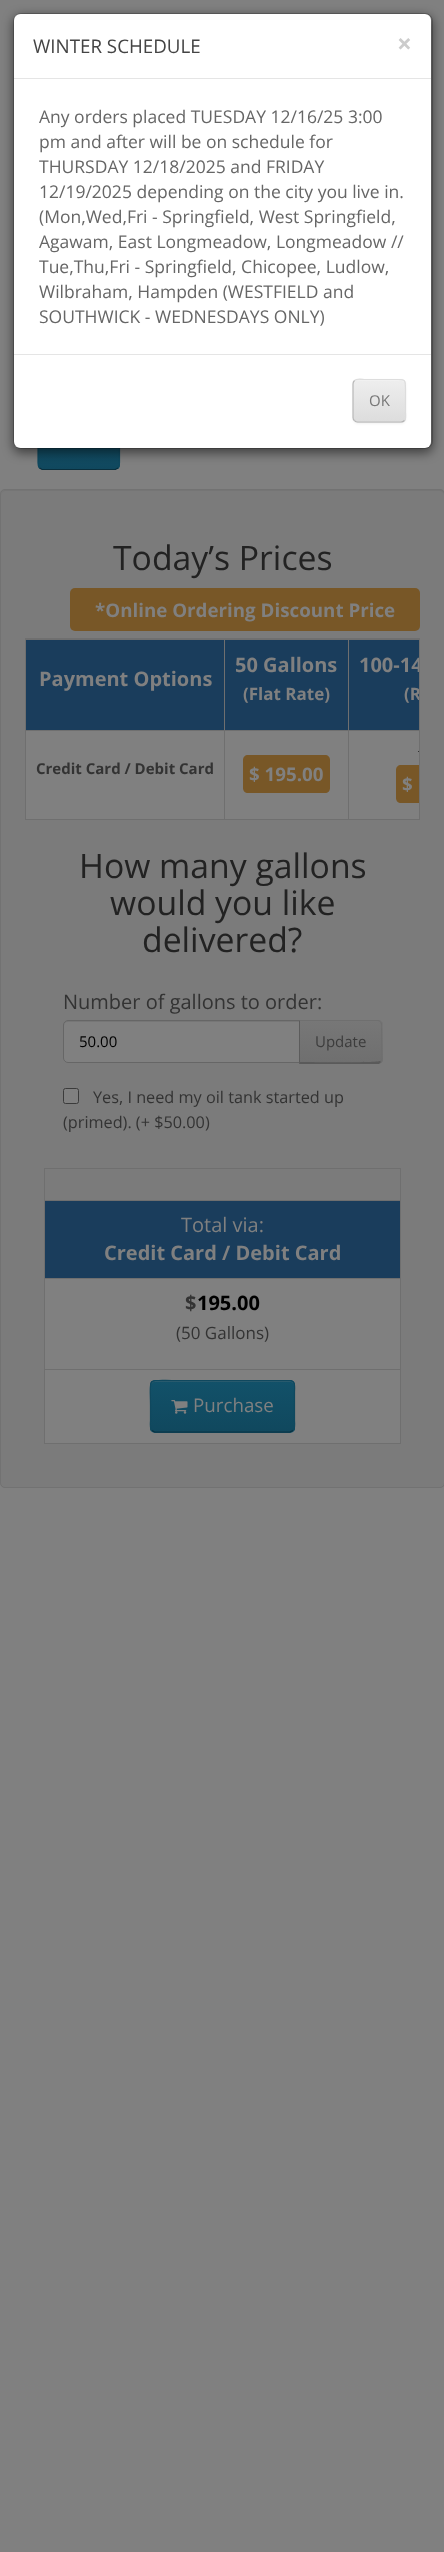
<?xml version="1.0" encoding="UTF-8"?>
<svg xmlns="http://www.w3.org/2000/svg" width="444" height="2552">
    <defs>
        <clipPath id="clip1"><rect x="38" y="428" width="82" height="42" rx="5"/></clipPath>
        <linearGradient id="g1" gradientUnits="userSpaceOnUse" x1="79" y1="429" x2="79" y2="469"><stop offset="0" stop-color="#125169"/><stop offset="1" stop-color="#10485E"/></linearGradient>
        <filter id="blur1" x="-50%" y="-200%" width="200%" height="500%"><feGaussianBlur stdDeviation="5.5"/></filter>
        <filter id="blur2" x="-50%" y="-200%" width="200%" height="500%"><feGaussianBlur stdDeviation="1"/></filter>
        <clipPath id="clip2"><rect x="353" y="379" width="53" height="44" rx="5"/></clipPath>
        <linearGradient id="g2" gradientUnits="userSpaceOnUse" x1="379" y1="380" x2="379" y2="421"><stop offset="0" stop-color="#EEEEEE"/><stop offset="1" stop-color="#DDDDDD"/></linearGradient>
        <clipPath id="clip3"><rect x="26" y="639" width="393" height="180"/></clipPath>
        <clipPath id="clip4"><path d="M 299 1020 H 378 C 381 1020 383 1022 383 1025 V 1059 C 383 1062 381 1064 378 1064 H 299 Z"/></clipPath>
        <linearGradient id="g3" gradientUnits="userSpaceOnUse" x1="341" y1="1021" x2="341" y2="1063"><stop offset="0" stop-color="#777777"/><stop offset="1" stop-color="#6F6F6F"/></linearGradient>
        <clipPath id="clip5"><rect x="150" y="1380" width="145" height="53" rx="5"/></clipPath>
        <linearGradient id="g4" gradientUnits="userSpaceOnUse" x1="223" y1="1381" x2="223" y2="1431"><stop offset="0" stop-color="#125169"/><stop offset="1" stop-color="#10485E"/></linearGradient>
    </defs>
    <rect width="100%" height="100%" fill="#808080"/>
    <g clip-path="url(#clip1)">
        <rect x="38" y="448" width="82" height="21" fill="url(#g1)"/>
    </g>
    <path d="M 118 468 L 115.5 469.5 H 42 L 39.5 468" fill="none" stroke="#0A2F3D" stroke-width="1.2"/>
    <path d="M 39.5 468 C 37.5 466 38 462 38 459.5 V 449 C 38 427 34 428 54.5 428 H 103 C 123.5 428 119.5 427 119.5 449 V 459.5 C 119.5 462 120 466 118 468" fill="none" stroke="#10485E" stroke-width="1.2"/>
    <rect x="13" y="16" width="420" height="437" rx="8" fill="#000000" fill-opacity="0.5" filter="url(#blur1)"/>
    <rect x="14" y="14" width="417" height="434" rx="6" fill="#FFFFFF"/>
    <rect x="13.5" y="13.5" width="419" height="435" rx="7.5" fill="none" stroke="#000000" stroke-opacity="0.2"/>
    <rect x="14" y="78" width="417" height="1" fill="#E5E5E5"/>
    <text x="33" y="53" font-family="Open Sans" font-size="18.75" fill="#444444">WINTER SCHEDULE</text>
    <text x="397" y="53" font-family="Open Sans" font-size="26" font-weight="700" fill="#CCCCCC">×</text>
    <text font-family="Open Sans" font-size="17.5" fill="#666666">
        <tspan x="39" y="123">Any orders placed TUESDAY 12/16/25 3:00</tspan>
        <tspan x="39" y="148">pm and after will be on schedule for</tspan>
        <tspan x="39" y="173">THURSDAY 12/18/2025 and FRIDAY</tspan>
        <tspan x="39" y="198">12/19/2025 depending on the city you live in.</tspan>
        <tspan x="39" y="223">(Mon,Wed,Fri - Springfield, West Springfield,</tspan>
        <tspan x="39" y="248">Agawam, East Longmeadow, Longmeadow //</tspan>
        <tspan x="39" y="273">Tue,Thu,Fri - Springfield, Chicopee, Ludlow,</tspan>
        <tspan x="39" y="298">Wilbraham, Hampden (WESTFIELD and</tspan>
        <tspan x="39" y="323">SOUTHWICK - WEDNESDAYS ONLY)</tspan>
    </text>
    <rect x="14" y="354" width="417" height="1" fill="#E5E5E5"/>
    <rect x="353" y="380" width="53" height="44" rx="5" fill="#000000" fill-opacity="0.05" filter="url(#blur2)"/>
    <rect x="353" y="379" width="53" height="44" rx="5" fill="#E7E7E7"/>
    <g clip-path="url(#clip2)">
        <rect x="353" y="380" width="53" height="41" fill="url(#g2)"/>
    </g>
    <path d="M 358 381 H 401 C 403 381 405 383 405 385 C 405 379 399 380 394 380 H 365 C 360 380 354 379 354 385 C 354 383 355 381 358 381 Z" fill="#F1F1F1"/>
    <path d="M 354.5 380.5 C 357 378 362.5 379.5 365 379.5 H 394 C 405 379.5 405.5 378.5 405.5 389.5 V 412 C 405.5 414.5 406.5 418.5 404.5 420.5" fill="none" stroke="#DDDDDD" stroke-width="1.2"/>
    <path d="M 404.5 420.5 C 403.5 421.5 402.5 422 401 422 H 357.5 C 356.5 422 355 421.5 354.5 420.5" fill="none" stroke="#B3B3B3" stroke-width="1.2"/>
    <path d="M 354.5 420.5 C 353.5 420 353 418.5 353 417.5 V 384 C 353 382.5 353.5 381.5 354.5 380.5" fill="none" stroke="#B7B7B7" stroke-width="1.2"/>
    <text x="369" y="406" font-family="Open Sans" font-size="15" fill="#777777">OK</text>
    <rect x="0" y="489" width="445" height="999" rx="5" fill="#7B7B7B"/>
    <path d="M 5 491 H 440 C 442 491 444 493 444 495 C 444 492 443 490 440 490 H 5 L 3 491 L 2 492 L 1 495 C 1 493 3 491 5 491 Z" fill="#757575"/>
    <rect x="0.5" y="489.5" width="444" height="998" rx="4.5" fill="none" stroke="#727272"/>
    <text x="113" y="570" font-family="Open Sans" font-size="33.75" fill="#222222">Today’s Prices</text>
    <rect x="70" y="588" width="350" height="43" rx="5" fill="#785727"/>
    <text x="95" y="617" font-family="Open Sans" font-size="18.75" font-weight="700" fill="#808080">*Online Ordering Discount Price</text>
    <rect x="25.5" y="638.5" width="394" height="181" fill="none" stroke="#6F6F6F"/>
    <rect x="26" y="731" width="393" height="88" fill="#808080"/>
    <rect x="26" y="640" width="393" height="90" fill="#1A3D5C"/>
    <rect x="348" y="639" width="71" height="1" fill="#6F6F6F"/>
    <rect x="348" y="730" width="71" height="1" fill="#6F6F6F"/>
    <rect x="348" y="730" width="1" height="89" fill="#6F6F6F"/>
    <rect x="224" y="730" width="125" height="1" fill="#6F6F6F"/>
    <rect x="348" y="639" width="1" height="92" fill="#6F6F6F"/>
    <rect x="224" y="639" width="125" height="1" fill="#6F6F6F"/>
    <rect x="224" y="730" width="1" height="89" fill="#6F6F6F"/>
    <rect x="26" y="730" width="199" height="1" fill="#6F6F6F"/>
    <rect x="224" y="639" width="1" height="92" fill="#6F6F6F"/>
    <rect x="26" y="639" width="199" height="1" fill="#6F6F6F"/>
    <text x="39" y="686" font-family="Open Sans" font-size="20" font-weight="700" fill="#808080">Payment Options</text>
    <text x="235" y="672" font-family="Open Sans" font-size="20" font-weight="700" fill="#808080">50 Gallons</text>
    <text x="243" y="700" font-family="Open Sans" font-size="17" font-weight="700" fill="#808080">(Flat Rate)</text>
    <g clip-path="url(#clip3)">
        <text x="359" y="672" font-family="Open Sans" font-size="20" font-weight="700" fill="#808080">100-14</text>
        <text x="404" y="700" font-family="Open Sans" font-size="17" font-weight="700" fill="#808080">(R</text>
    </g>
    <text x="36" y="774" font-family="Open Sans" font-size="15" font-weight="700" fill="#333333">Credit Card / Debit Card</text>
    <path d="M 248 755 H 260 V 793 H 248 C 245 793 243 791 243 788 V 760 C 243 757 245 755 248 755 Z" fill="#785727"/>
    <path d="M 260 755 H 325 C 328 755 330 757 330 760 V 788 C 330 791 328 793 325 793 H 260 Z" fill="#785727"/>
    <text x="249" y="781" font-family="Open Sans" font-size="18.75" font-weight="700" fill="#808080">$ 195.00</text>
    <rect x="418" y="751" width="1" height="1" fill="#333333"/>
    <path d="M 401 765 H 413 V 803 H 401 C 398 803 396 801 396 798 V 770 C 396 767 398 765 401 765 Z" fill="#785727"/>
    <text x="402" y="791" font-family="Open Sans" font-size="18.75" font-weight="700" fill="#808080">$</text>
    <rect x="413" y="765" width="6" height="38" fill="#785727"/>
    <text x="79" y="878" font-family="Open Sans" font-size="33.75" fill="#222222">How many gallons</text>
    <text x="110" y="915" font-family="Open Sans" font-size="33.75" fill="#222222">would you like</text>
    <text x="142" y="952" font-family="Open Sans" font-size="33.75" fill="#222222">delivered?</text>
    <text x="63" y="1009" font-family="Open Sans" font-size="20" fill="#333333">Number of gallons to order:</text>
    <path d="M 68 1020 H 300 V 1063 H 68 C 65 1063 63 1061 63 1058 V 1025 C 63 1022 65 1020 68 1020 Z" fill="#808080"/>
    <path d="M 68 1022 H 299 V 1021 H 68 C 65 1021 64 1023 64 1026 C 64 1024 65 1022 68 1022 Z" fill="#767676"/>
    <path d="M 68 1020.5 H 299.5 V 1062.5 H 68 C 65.5 1062.5 63.5 1060.5 63.5 1058 V 1025 C 63.5 1022.5 65.5 1020.5 68 1020.5 Z" fill="none" stroke="#666666"/>
    <text x="79" y="1047" font-family="Open Sans" font-size="15" fill="#000000">50.00</text>
    <path d="M 299 1020 H 378 C 381 1020 383 1022 383 1025 V 1059 C 383 1062 381 1064 378 1064 H 299 Z" fill="#747474"/>
    <g clip-path="url(#clip4)">
        <rect x="299" y="1021" width="84" height="42" fill="url(#g3)"/>
    </g>
    <path d="M 299 1020 L 300 1021 H 378 L 380 1022 H 381 C 380 1021 379 1020 378 1020 Z" fill="#6F6F6F"/>
    <path d="M 381 1022 C 382 1022 382 1024 382 1025 V 1059 C 382 1060 382 1061 381 1062 L 380 1061 L 381 1060 V 1031 C 381 1029 382 1024 380 1022 Z" fill="#6F6F6F"/>
    <path d="M 299 1064 L 300 1062 C 309 1062 378 1063 380 1061 L 381 1062 L 379 1064 Z" fill="#5A5A5A"/>
    <path d="M 299 1020 V 1064 L 300 1062 V 1021 Z" fill="#5C5C5C"/>
    <text x="315" y="1047" font-family="Open Sans" font-size="15" fill="#3C3C3C">Update</text>
    <rect x="63.5" y="1088.5" width="15" height="15" rx="2" fill="#808080" stroke="#3B3B3B"/>
    <text x="93" y="1103" font-family="Open Sans" font-size="16.25" fill="#333333">Yes, I need my oil tank started up</text>
    <text x="63" y="1128" font-family="Open Sans" font-size="16.25" fill="#333333">(primed). (+ $50.00)</text>
    <rect x="44.5" y="1168.5" width="356" height="275" fill="none" stroke="#6F6F6F"/>
    <rect x="45" y="1279" width="355" height="164" fill="#808080"/>
    <rect x="45" y="1201" width="355" height="77" fill="#1A3D5C"/>
    <rect x="45" y="1200" width="355" height="1" fill="#6F6F6F"/>
    <text x="181" y="1232" font-family="Open Sans" font-size="20" fill="#808080">Total via:</text>
    <text x="104" y="1260" font-family="Open Sans" font-size="20" font-weight="700" fill="#808080">Credit Card / Debit Card</text>
    <rect x="45" y="1278" width="355" height="1" fill="#6F6F6F"/>
    <text x="185" y="1310" font-family="Open Sans" font-size="20" font-weight="700" fill="#333333">$</text>
    <text x="197" y="1310" font-family="Open Sans" font-size="20" font-weight="700" fill="#000000">195.00</text>
    <text x="176" y="1339" font-family="Open Sans" font-size="17" fill="#333333">(50 Gallons)</text>
    <rect x="45" y="1369" width="355" height="1" fill="#6F6F6F"/>
    <rect x="150" y="1380" width="145" height="53" rx="5" fill="#114D64"/>
    <g clip-path="url(#clip5)">
        <rect x="150" y="1381" width="145" height="50" fill="url(#g4)"/>
    </g>
    <path d="M 155 1382 H 290 C 292 1382 294 1384 294 1386 V 1385 C 294 1383 292 1381 290 1381 H 155 C 153 1381 151 1383 151 1385 V 1386 C 151 1384 153 1382 155 1382 Z" fill="#285A6D"/>
    <path d="M 293 1430.5 L 290 1432 H 154.5 L 152 1430.5" fill="none" stroke="#0A2F3D" stroke-width="1.2"/>
    <path d="M 152 1430.5 C 149.5 1428 150.5 1422.5 150.5 1420.5 V 1406 C 150.5 1375.5 145 1380.5 177.5 1380.5 H 290 C 296 1380.5 294.5 1389 294.5 1392 V 1420.5 C 294.5 1422.5 295.5 1428 293 1430.5" fill="none" stroke="#10485E" stroke-width="1.2"/>
    <image x="171" y="1400" width="17" height="14" href="img_01.png"/>
    <text x="193" y="1412" font-family="Open Sans" font-size="18.75" fill="#808080">Purchase</text>
</svg>
